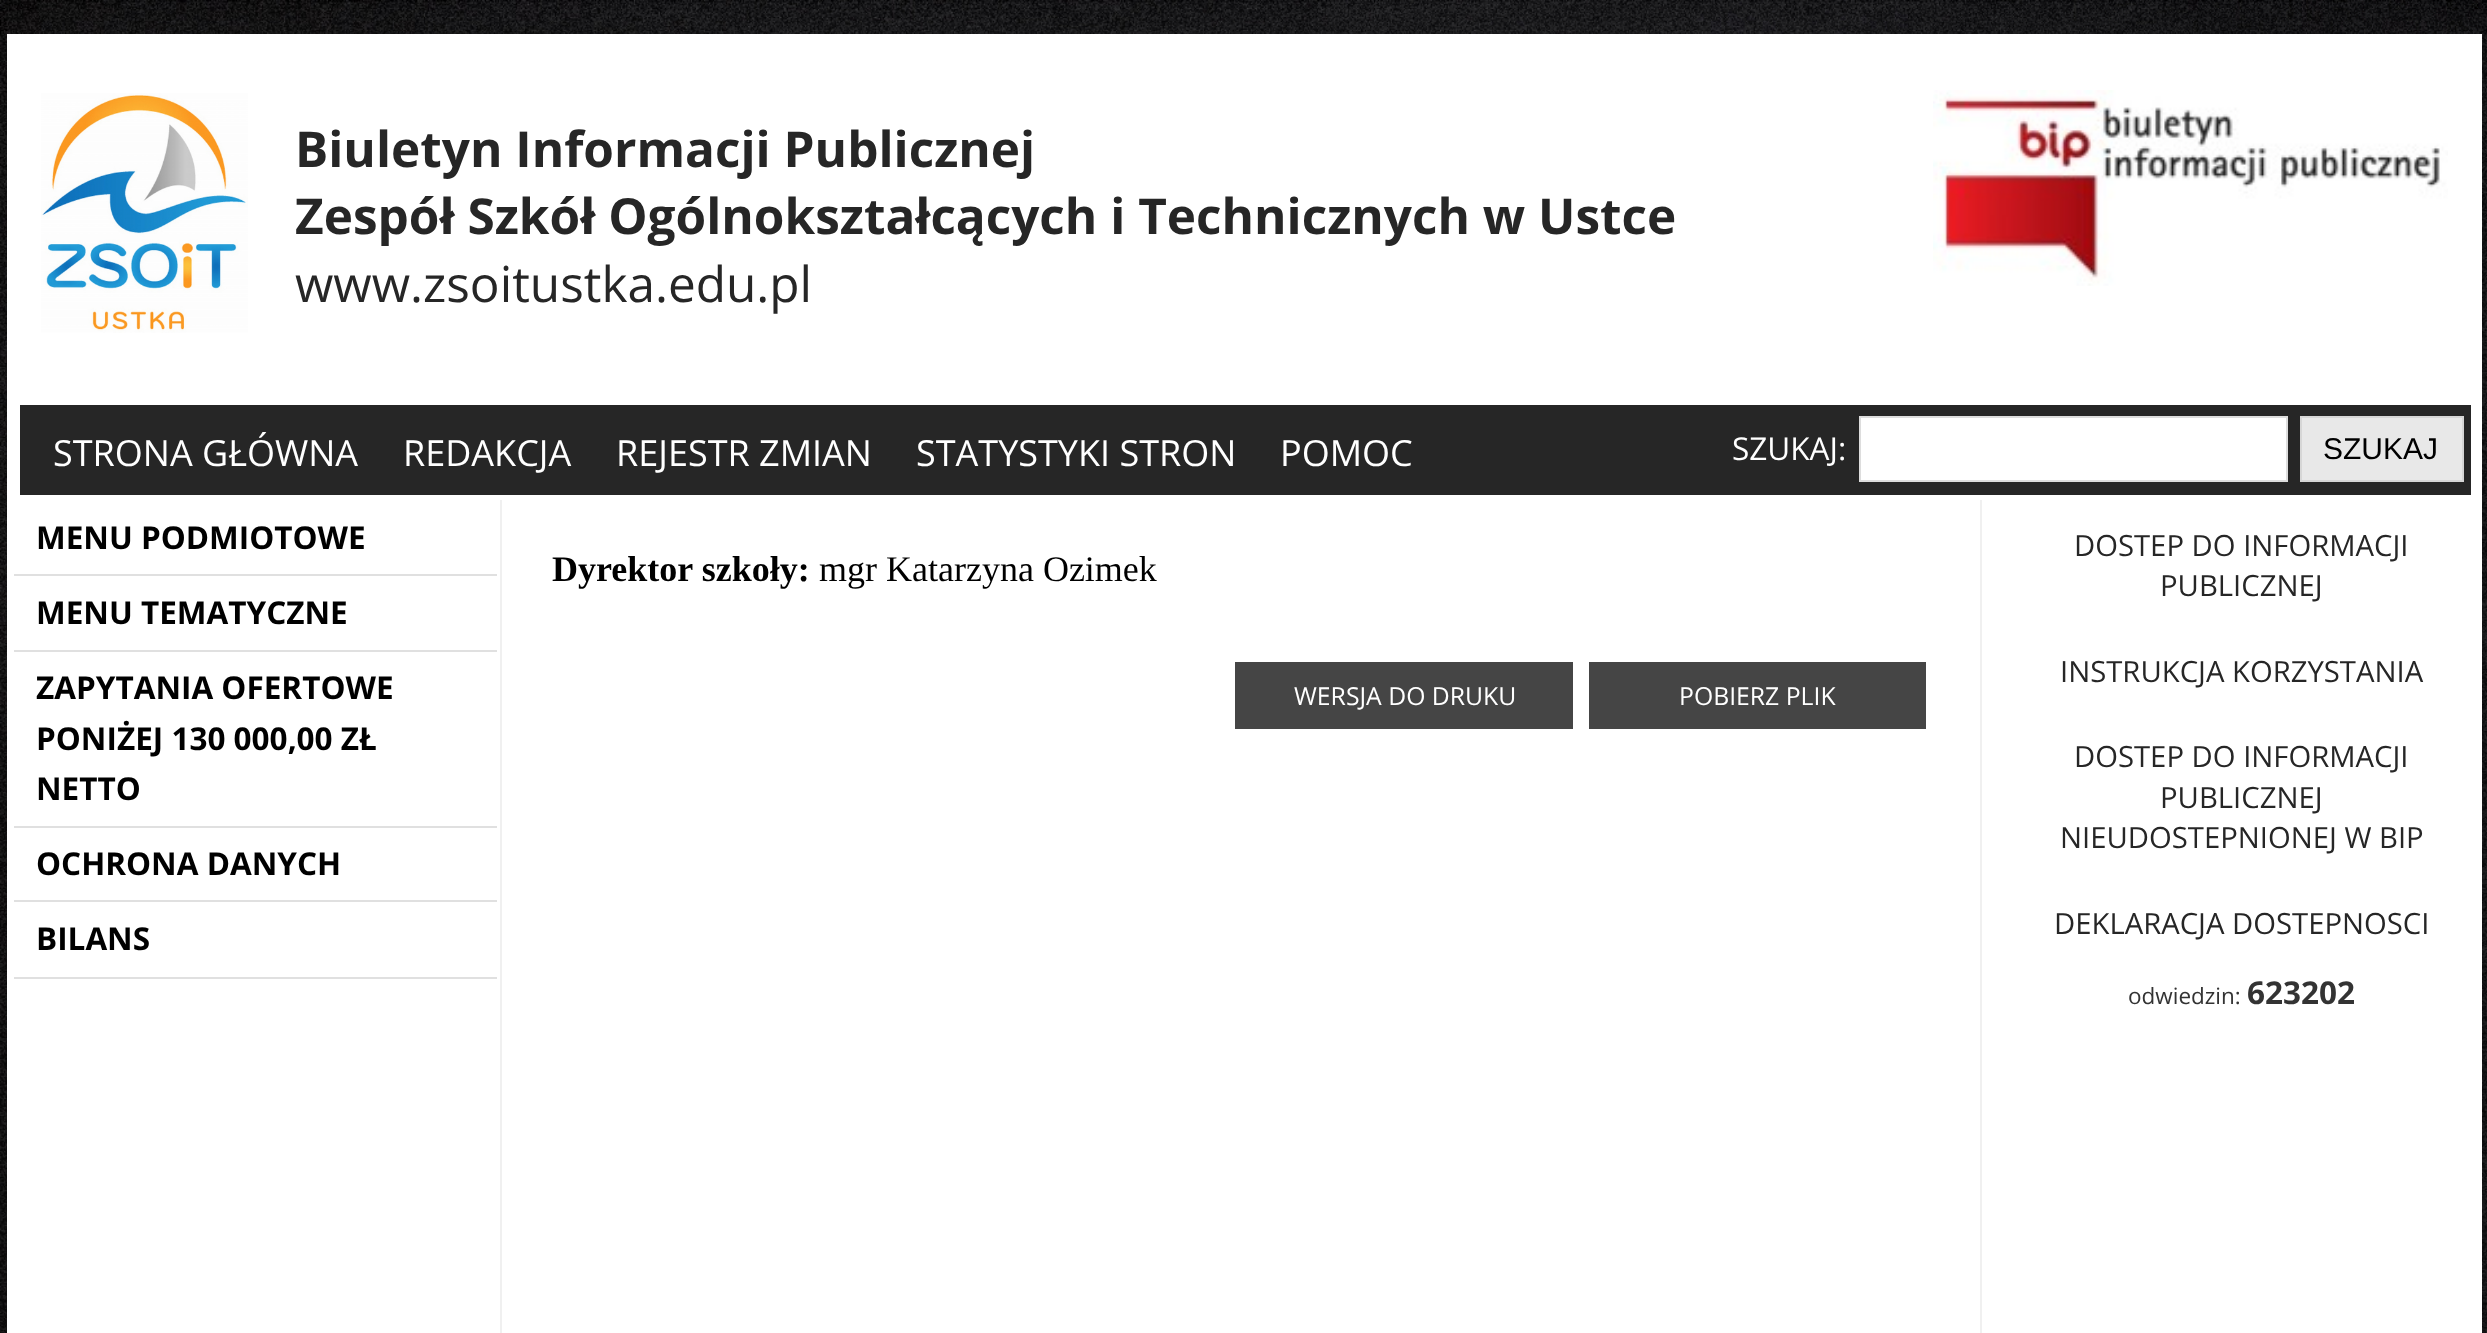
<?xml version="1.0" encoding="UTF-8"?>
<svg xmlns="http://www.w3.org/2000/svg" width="2487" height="1333">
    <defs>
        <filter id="blur1" x="-50%" y="-200%" width="200%" height="500%"><feGaussianBlur stdDeviation="34"/></filter>
    </defs>
    <rect width="100%" height="100%" fill="#FFFFFF"/>
    <image x="0" y="0" width="2487" height="1333" href="img_01.png"/>
    <rect x="7" y="34" width="2475" height="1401" fill="#323232" fill-opacity="0.35" filter="url(#blur1)"/>
    <rect x="7" y="34" width="2475" height="1299" fill="#FFFFFF"/>
    <image x="41" y="93" width="207" height="240" href="img_02.png"/>
    <text font-family="Open Sans" font-size="49.5" font-weight="700" fill="#262626">
        <tspan x="295" y="167">Biuletyn Informacji Publicznej</tspan>
        <tspan x="295" y="234">Zespół Szkół Ogólnokształcących i Technicznych w Ustce</tspan>
    </text>
    <text x="295" y="302" font-family="Open Sans" font-size="49.5" fill="#262626">www.zsoitustka.edu.pl</text>
    <image x="1933" y="90" width="515" height="196" href="img_03.png"/>
    <rect x="20" y="405" width="2451" height="90" fill="#262626"/>
    <text x="53" y="466" font-family="Open Sans" font-size="36" fill="#FFFFFF">STRONA GŁÓWNA</text>
    <text x="403" y="466" font-family="Open Sans" font-size="36" fill="#FFFFFF">REDAKCJA</text>
    <text x="616" y="466" font-family="Open Sans" font-size="36" fill="#FFFFFF">REJESTR ZMIAN</text>
    <text x="916" y="466" font-family="Open Sans" font-size="36" fill="#FFFFFF">STATYSTYKI STRON</text>
    <text x="1280" y="466" font-family="Open Sans" font-size="36" fill="#FFFFFF">POMOC</text>
    <text x="1732" y="460" font-family="Open Sans" font-size="31.5" fill="#FFFFFF">SZUKAJ:</text>
    <rect x="1860" y="417" width="427" height="64" fill="#FFFFFF" stroke="#DDDDDD" stroke-width="2"/>
    <rect x="2301" y="417" width="162" height="64" fill="#E8E8E8" stroke="#D6D6D6" stroke-width="2"/>
    <text x="2323" y="459" font-family="Liberation Sans" font-size="30" fill="#000000">SZUKAJ</text>
    <rect x="500" y="500" width="2" height="833" fill="#F0F0F0"/>
    <rect x="14" y="574" width="483" height="2" fill="#E0E0E0"/>
    <text x="36" y="549" font-family="Open Sans" font-size="31.5" font-weight="700" fill="#000000">MENU PODMIOTOWE</text>
    <rect x="14" y="650" width="483" height="2" fill="#E0E0E0"/>
    <text x="36" y="624" font-family="Open Sans" font-size="31.5" font-weight="700" fill="#000000">MENU TEMATYCZNE</text>
    <rect x="14" y="826" width="483" height="2" fill="#E0E0E0"/>
    <text font-family="Open Sans" font-size="31.5" font-weight="700" fill="#000000">
        <tspan x="36" y="699">ZAPYTANIA OFERTOWE</tspan>
        <tspan x="36" y="750">PONIŻEJ 130 000,00 ZŁ</tspan>
        <tspan x="36" y="800">NETTO</tspan>
    </text>
    <rect x="14" y="900" width="483" height="2" fill="#E0E0E0"/>
    <text x="36" y="875" font-family="Open Sans" font-size="31.5" font-weight="700" fill="#000000">OCHRONA DANYCH</text>
    <rect x="14" y="977" width="483" height="2" fill="#E0E0E0"/>
    <text x="36" y="950" font-family="Open Sans" font-size="31.5" font-weight="700" fill="#000000">BILANS</text>
    <rect x="1980" y="500" width="2" height="833" fill="#F0F0F0"/>
    <text x="552" y="581" font-family="Liberation Serif" font-size="36" font-weight="700" fill="#000000">Dyrektor szkoły:</text>
    <text x="819" y="581" font-family="Liberation Serif" font-size="36" fill="#000000">mgr Katarzyna Ozimek</text>
    <rect x="1235" y="662" width="338" height="67" fill="#454545"/>
    <text x="1294" y="705" font-family="Open Sans" font-size="24.75" fill="#FFFFFF">WERSJA DO DRUKU</text>
    <rect x="1589" y="662" width="337" height="67" fill="#454545"/>
    <text x="1679" y="705" font-family="Open Sans" font-size="24.75" fill="#FFFFFF">POBIERZ PLIK</text>
    <text x="2074" y="556" font-family="Open Sans" font-size="29.25" fill="#262626">DOSTEP DO INFORMACJI</text>
    <text x="2160" y="596" font-family="Open Sans" font-size="29.25" fill="#262626">PUBLICZNEJ</text>
    <text x="2060" y="682" font-family="Open Sans" font-size="29.25" fill="#262626">INSTRUKCJA KORZYSTANIA</text>
    <text x="2074" y="767" font-family="Open Sans" font-size="29.25" fill="#262626">DOSTEP DO INFORMACJI</text>
    <text x="2160" y="808" font-family="Open Sans" font-size="29.25" fill="#262626">PUBLICZNEJ</text>
    <text x="2060" y="848" font-family="Open Sans" font-size="29.25" fill="#262626">NIEUDOSTEPNIONEJ W BIP</text>
    <text x="2054" y="934" font-family="Open Sans" font-size="29.25" fill="#262626">DEKLARACJA DOSTEPNOSCI</text>
    <text x="2128" y="1004" font-family="Open Sans" font-size="22.5" fill="#333333">odwiedzin:</text>
    <text x="2247" y="1004" font-family="Open Sans" font-size="31.5" font-weight="700" fill="#333333">623202</text>
</svg>
